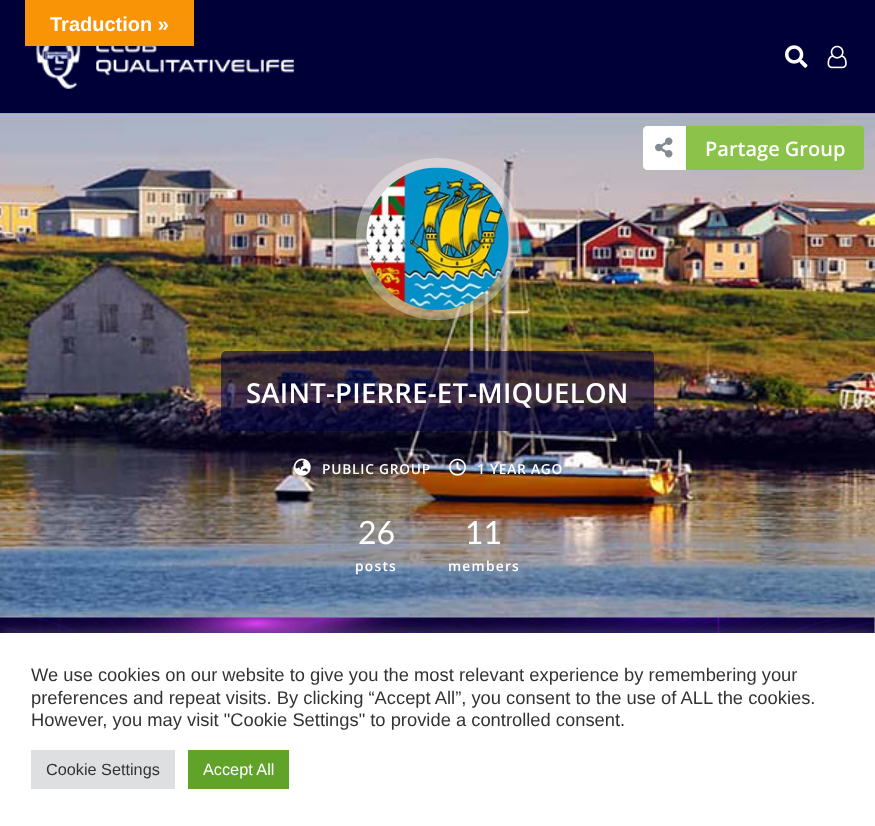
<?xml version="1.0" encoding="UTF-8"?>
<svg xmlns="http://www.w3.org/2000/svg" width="875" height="826">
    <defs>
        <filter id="blur1" x="-50%" y="-200%" width="200%" height="500%"><feGaussianBlur stdDeviation="5.5"/></filter>
        <filter id="blur2" x="-50%" y="-200%" width="200%" height="500%"><feGaussianBlur stdDeviation="6"/></filter>
    </defs>
    <rect width="100%" height="100%" fill="#FFFFFF"/>
    <image x="0" y="617" width="875" height="16" href="img_01.png"/>
    <rect x="0" y="0" width="875" height="113" fill="#000039"/>
    <image x="36" y="46" width="258" height="43" href="img_02.png"/>
    <rect x="25" y="0" width="169" height="46" fill="#000000" fill-opacity="0.3" filter="url(#blur1)"/>
    <rect x="25" y="0" width="169" height="46" fill="#F89406"/>
    <text x="50" y="31" font-family="Liberation Sans" font-size="20" font-weight="700" fill="#FFFFFF">Traduction »</text>
    <rect x="0" y="113" width="875" height="1" fill="#4FC1E9"/>
    <image x="785" y="45" width="23" height="23" href="img_03.png"/>
    <image x="827" y="45" width="20" height="24" href="img_04.png"/>
    <image x="0" y="114" width="875" height="504" href="img_06.png"/>
    <rect x="643" y="126" width="221" height="44" rx="4" fill="#8BC34A"/>
    <path d="M 647 126 H 686 V 170 H 647 C 645 170 643 168 643 166 V 130 C 643 128 645 126 647 126 Z" fill="#FFFFFF"/>
    <image x="655" y="137" width="18" height="21" href="img_05.png"/>
    <text x="705" y="156" font-family="Open Sans" font-size="20" font-weight="600" fill="#FFFFFF">Partage Group</text>
    <rect x="356" y="158" width="163" height="162" rx="81" fill="#FFFFFF" fill-opacity="0.35"/>
    <image x="366" y="167" width="143" height="143" href="img_07.png"/>
    <rect x="221" y="351" width="433" height="80" rx="5" fill="#000039" fill-opacity="0.6"/>
    <text x="246" y="403" font-family="Open Sans" font-size="27.5" font-weight="600" letter-spacing="0.25" fill="#FFFFFF">SAINT-PIERRE-ET-MIQUELON</text>
    <image x="293" y="458" width="18" height="18" href="img_08.png"/>
    <text x="322" y="474" font-family="Open Sans" font-size="13.75" font-weight="600" letter-spacing="0.75" fill="#FFFFFF">PUBLIC GROUP</text>
    <image x="449" y="458" width="17" height="18" href="img_09.png"/>
    <text x="477" y="474" font-family="Open Sans" font-size="13.75" font-weight="600" letter-spacing="0.75" fill="#FFFFFF">1 YEAR AGO</text>
    <text x="358" y="544" font-family="Lato" font-size="32" fill="#FFFFFF">26</text>
    <text x="355" y="571" font-family="Open Sans" font-size="13.75" font-weight="600" letter-spacing="1.25" fill="#FFFFFF">posts</text>
    <text x="465" y="544" font-family="Lato" font-size="32" fill="#FFFFFF">11</text>
    <text x="448" y="571" font-family="Open Sans" font-size="13.75" font-weight="600" letter-spacing="1.25" fill="#FFFFFF">members</text>
    <rect x="0" y="631" width="875" height="194" fill="#ACABAB" fill-opacity="0.3" filter="url(#blur2)"/>
    <rect x="0" y="633" width="875" height="193" fill="#FFFFFF"/>
    <text font-family="Liberation Sans" font-size="18.35" fill="#333333">
        <tspan x="31" y="681">We use cookies on our website to give you the most relevant experience by remembering your</tspan>
        <tspan x="31" y="704">preferences and repeat visits. By clicking “Accept All”, you consent to the use of ALL the cookies.</tspan>
        <tspan x="31" y="726">However, you may visit "Cookie Settings" to provide a controlled consent.</tspan>
    </text>
    <rect x="31" y="750" width="144" height="39" fill="#DEDFE0"/>
    <text x="46" y="775" font-family="Liberation Sans" font-size="16.25" fill="#333333">Cookie Settings</text>
    <rect x="188" y="750" width="101" height="39" fill="#61A229"/>
    <text x="203" y="775" font-family="Liberation Sans" font-size="16.25" fill="#FFFFFF">Accept All</text>
</svg>
